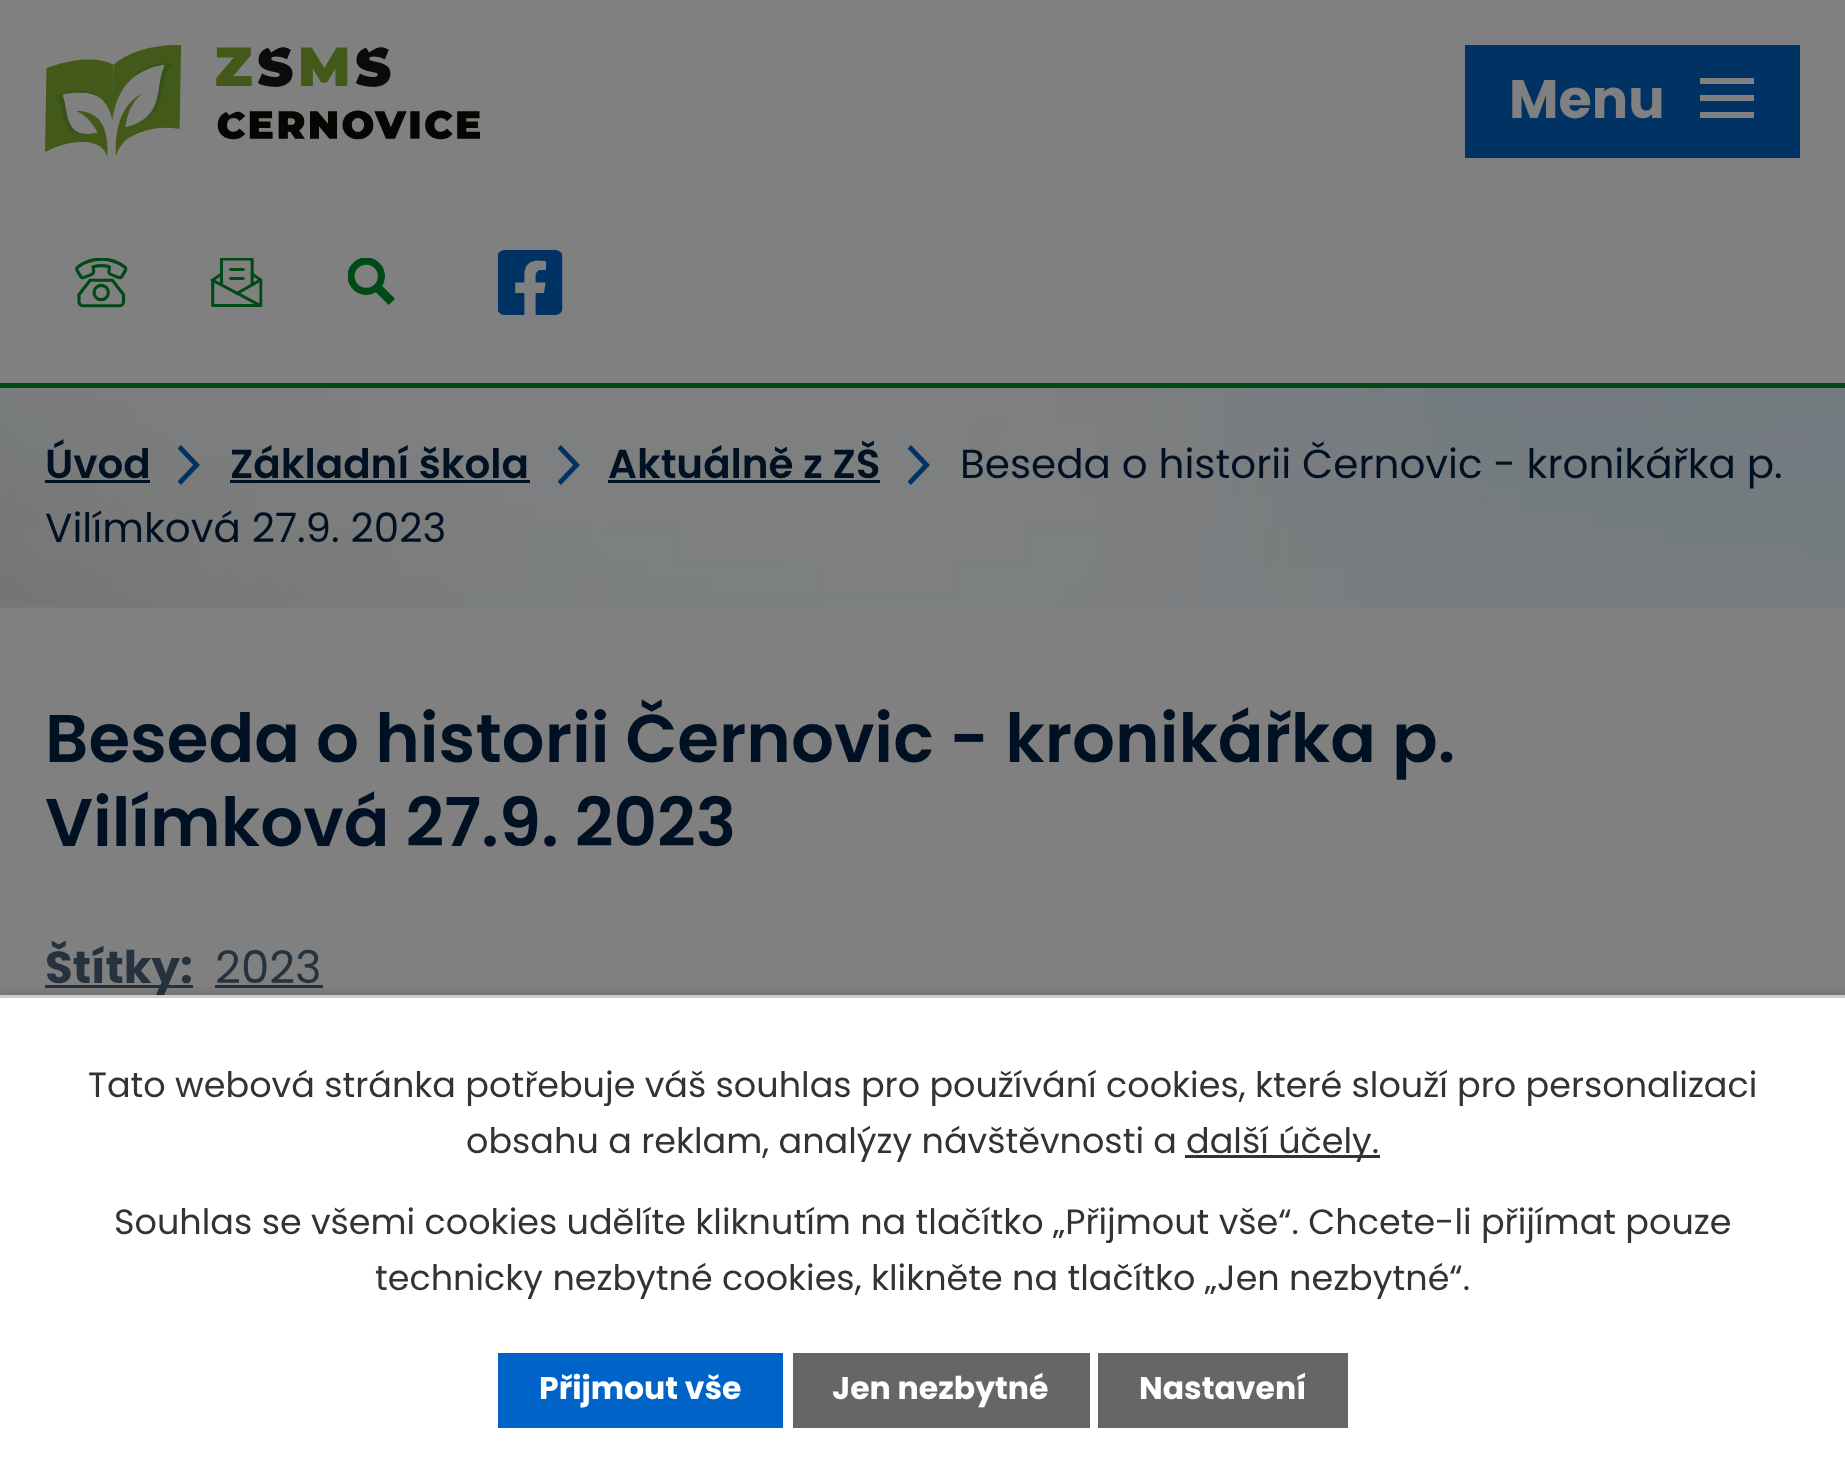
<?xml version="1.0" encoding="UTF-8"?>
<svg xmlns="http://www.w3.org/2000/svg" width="1845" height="1483">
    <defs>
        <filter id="blur1" x="-50%" y="-200%" width="200%" height="500%"><feGaussianBlur stdDeviation="6"/></filter>
    </defs>
    <rect width="100%" height="100%" fill="#808080"/>
    <rect x="0" y="383" width="1845" height="5" fill="#004A18"/>
    <image x="45" y="45" width="435" height="113" href="img_01.png"/>
    <image x="75" y="258" width="53" height="50" href="img_02.png"/>
    <image x="210" y="258" width="53" height="49" href="img_03.png"/>
    <image x="348" y="258" width="47" height="47" href="img_04.png"/>
    <image x="498" y="250" width="65" height="65" href="img_05.png"/>
    <rect x="1465" y="45" width="335" height="113" fill="#003264"/>
    <text x="1509" y="118" font-family="Poppins" font-size="54" font-weight="700" fill="#808080">Menu</text>
    <path d="M 1700 118 V 112 H 1754 V 118 Z M 1700 78 H 1754 V 84 H 1700 Z M 1700 101 V 95 H 1754 V 101 Z" fill="#808080"/>
    <image x="0" y="388" width="1845" height="220" href="img_06.png"/>
    <text x="45" y="478" font-family="Poppins" font-size="40.5" font-weight="600" fill="#001123">Úvod</text>
    <rect x="45" y="480" width="105" height="3" fill="#001123"/>
    <image x="178" y="445" width="22" height="40" href="img_07.png"/>
    <text x="230" y="478" font-family="Poppins" font-size="40.5" font-weight="600" fill="#001123">Základní škola</text>
    <rect x="230" y="480" width="300" height="3" fill="#001123"/>
    <image x="558" y="445" width="22" height="40" href="img_08.png"/>
    <text x="608" y="478" font-family="Poppins" font-size="40.5" font-weight="600" fill="#001123">Aktuálně z ZŠ</text>
    <rect x="608" y="480" width="272" height="3" fill="#001123"/>
    <image x="908" y="445" width="22" height="40" href="img_09.png"/>
    <text x="960" y="478" font-family="Poppins" font-size="40.5" fill="#001123">Beseda o historii Černovic - kronikářka p.</text>
    <text x="45" y="542" font-family="Poppins" font-size="40.5" fill="#001123">Vilímková 27.9. 2023</text>
    <text font-family="Poppins" font-size="67.5" font-weight="600" fill="#001123">
        <tspan x="45" y="762">Beseda o historii Černovic - kronikářka p.</tspan>
        <tspan x="45" y="846">Vilímková 27.9. 2023</tspan>
    </text>
    <rect x="45" y="985" width="148" height="3" fill="#26323E"/>
    <text x="45" y="983" font-family="Poppins" font-size="45" font-weight="700" fill="#26323E">Štítky:</text>
    <text x="215" y="983" font-family="Poppins" font-size="45" fill="#26323E">2023</text>
    <rect x="215" y="985" width="108" height="3" fill="#26323E"/>
    <rect x="0" y="995" width="1845" height="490" fill="#000000" fill-opacity="0.2" filter="url(#blur1)"/>
    <rect x="0" y="998" width="1845" height="485" fill="#FFFFFF"/>
    <rect x="0" y="995" width="1845" height="3" fill="#CCCCCC"/>
    <text x="88" y="1097" font-family="Poppins" font-size="35" fill="#333333">Tato webová stránka potřebuje váš souhlas pro používání cookies, které slouží pro personalizaci</text>
    <text x="466" y="1153" font-family="Poppins" font-size="35" fill="#333333">obsahu a reklam, analýzy návštěvnosti a</text>
    <rect x="1185" y="1155" width="195" height="3" fill="#333333"/>
    <text x="1186" y="1153" font-family="Poppins" font-size="35" fill="#333333">další účely.</text>
    <text x="114" y="1234" font-family="Poppins" font-size="35" fill="#333333">Souhlas se všemi cookies udělíte kliknutím na tlačítko „Přijmout vše“. Chcete-li přijímat pouze</text>
    <text x="375" y="1290" font-family="Poppins" font-size="35" fill="#333333">technicky nezbytné cookies, klikněte na tlačítko „Jen nezbytné“.</text>
    <rect x="498" y="1353" width="285" height="75" fill="#0063C7"/>
    <text x="539" y="1399" font-family="Poppins" font-size="31.5" font-weight="700" fill="#FFFFFF">Přijmout vše</text>
    <rect x="793" y="1353" width="297" height="75" fill="#666666"/>
    <text x="832" y="1399" font-family="Poppins" font-size="31.5" font-weight="700" fill="#FFFFFF">Jen nezbytné</text>
    <rect x="1098" y="1353" width="250" height="75" fill="#666666"/>
    <text x="1139" y="1399" font-family="Poppins" font-size="31.5" font-weight="700" fill="#FFFFFF">Nastavení</text>
</svg>
